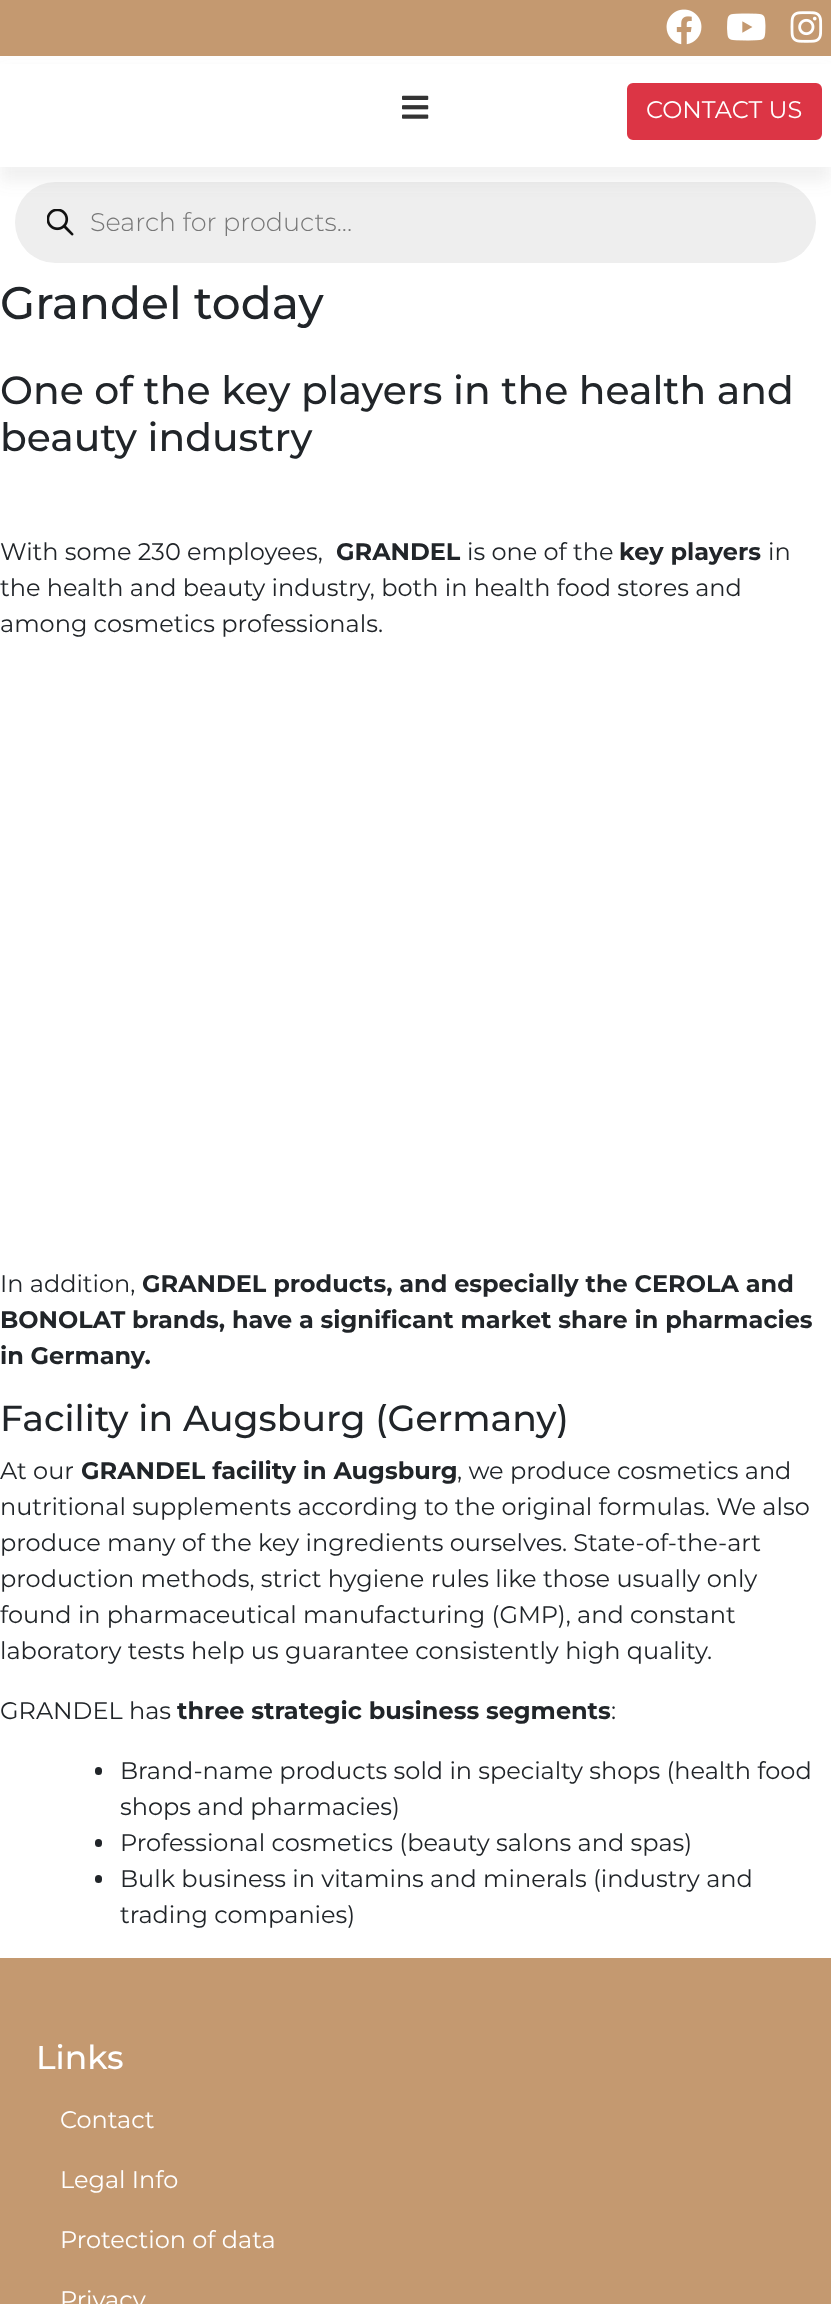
<?xml version="1.0" encoding="UTF-8"?>
<svg xmlns="http://www.w3.org/2000/svg" width="831" height="2304">
    <defs>
        <filter id="blur1" x="-50%" y="-200%" width="200%" height="500%"><feGaussianBlur stdDeviation="7.5"/></filter>
    </defs>
    <rect width="100%" height="100%" fill="#FFFFFF"/>
    <rect x="0" y="0" width="831" height="56" fill="#C49970"/>
    <image x="666" y="9" width="36" height="36" href="img_01.png"/>
    <image x="727" y="13" width="39" height="28" href="img_02.png"/>
    <image x="790" y="11" width="33" height="32" href="img_03.png"/>
    <rect x="15" y="182" width="801" height="81" rx="40.5" fill="#EEEEEE"/>
    <rect x="0" y="71" width="831" height="111" fill="#888888" fill-opacity="0.12" filter="url(#blur1)"/>
    <rect x="0" y="64" width="831" height="103" fill="#FFFFFF"/>
    <image x="402" y="95" width="27" height="24" href="img_04.png"/>
    <rect x="628" y="84" width="193" height="55" rx="5" fill="#DC3545" stroke="#DC3545" stroke-width="2"/>
    <text x="646" y="118" font-family="Montserrat" font-size="24" fill="#FFFFFF">CONTACT US</text>
    <image x="47" y="209" width="27" height="27" href="img_05.png"/>
    <text x="90" y="231" font-family="Montserrat" font-size="25.5" font-weight="300" fill="#777777">Search for products...</text>
    <text x="0" y="319" font-family="Montserrat" font-size="45.5" font-weight="500" fill="#212529">Grandel today</text>
    <text font-family="Montserrat" font-size="39.25" font-weight="500" fill="#212529">
        <tspan x="0" y="404">One of the key players in the health and</tspan>
        <tspan x="0" y="451">beauty industry</tspan>
    </text>
    <text x="0" y="560" font-family="Montserrat" font-size="24" fill="#212529">With some 230 employees,</text>
    <text x="336" y="560" font-family="Montserrat" font-size="24" font-weight="700" fill="#212529">GRANDEL</text>
    <text x="467" y="560" font-family="Montserrat" font-size="24" fill="#212529">is one of the</text>
    <text x="619" y="560" font-family="Montserrat" font-size="24" font-weight="700" fill="#212529">key players</text>
    <text x="768" y="560" font-family="Montserrat" font-size="24" fill="#212529">in</text>
    <text font-family="Montserrat" font-size="24" fill="#212529">
        <tspan x="0" y="596">the health and beauty industry, both in health food stores and</tspan>
        <tspan x="0" y="632">among cosmetics professionals.</tspan>
    </text>
    <text x="0" y="1292" font-family="Montserrat" font-size="24" fill="#212529">In addition,</text>
    <text x="142" y="1292" font-family="Montserrat" font-size="24" font-weight="700" fill="#212529">GRANDEL products, and especially the CEROLA and</text>
    <text font-family="Montserrat" font-size="24" font-weight="700" fill="#212529">
        <tspan x="0" y="1328">BONOLAT brands, have a significant market share in pharmacies</tspan>
        <tspan x="0" y="1364">in Germany.</tspan>
    </text>
    <text x="0" y="1431" font-family="Montserrat" font-size="36.25" font-weight="500" fill="#212529">Facility in Augsburg (Germany)</text>
    <text x="0" y="1479" font-family="Montserrat" font-size="24" fill="#212529">At our</text>
    <text x="81" y="1479" font-family="Montserrat" font-size="24" font-weight="700" fill="#212529">GRANDEL facility in Augsburg</text>
    <text x="457" y="1479" font-family="Montserrat" font-size="24" fill="#212529">, we produce cosmetics and</text>
    <text font-family="Montserrat" font-size="24" fill="#212529">
        <tspan x="0" y="1515">nutritional supplements according to the original formulas. We also</tspan>
        <tspan x="0" y="1551">produce many of the key ingredients ourselves. State-of-the-art</tspan>
        <tspan x="0" y="1587">production methods, strict hygiene rules like those usually only</tspan>
        <tspan x="0" y="1623">found in pharmaceutical manufacturing (GMP), and constant</tspan>
        <tspan x="0" y="1659">laboratory tests help us guarantee consistently high quality.</tspan>
    </text>
    <text x="0" y="1719" font-family="Montserrat" font-size="24" fill="#212529">GRANDEL has</text>
    <text x="177" y="1719" font-family="Montserrat" font-size="24" font-weight="700" fill="#212529">three strategic business segments</text>
    <text x="611" y="1719" font-family="Montserrat" font-size="24" fill="#212529">:</text>
    <rect x="95" y="1767" width="7" height="8" rx="3.5" fill="#212529"/>
    <text font-family="Montserrat" font-size="24" fill="#212529">
        <tspan x="120" y="1779">Brand-name products sold in specialty shops (health food</tspan>
        <tspan x="120" y="1815">shops and pharmacies)</tspan>
    </text>
    <rect x="95" y="1839" width="7" height="8" rx="3.5" fill="#212529"/>
    <text x="120" y="1851" font-family="Montserrat" font-size="24" fill="#212529">Professional cosmetics (beauty salons and spas)</text>
    <rect x="95" y="1875" width="7" height="8" rx="3.5" fill="#212529"/>
    <text font-family="Montserrat" font-size="24" fill="#212529">
        <tspan x="120" y="1887">Bulk business in vitamins and minerals (industry and</tspan>
        <tspan x="120" y="1923">trading companies)</tspan>
    </text>
    <rect x="0" y="1958" width="831" height="346" fill="#C49970"/>
    <text x="36" y="2069" font-family="Montserrat" font-size="33" font-weight="500" fill="#FFFFFF">Links</text>
    <text x="60" y="2128" font-family="Montserrat" font-size="24" fill="#FFFFFF">Contact</text>
    <text x="60" y="2188" font-family="Montserrat" font-size="24" fill="#FFFFFF">Legal Info</text>
    <text x="60" y="2248" font-family="Montserrat" font-size="24" fill="#FFFFFF">Protection of data</text>
    <text x="60" y="2308" font-family="Montserrat" font-size="24" fill="#FFFFFF">Privacy</text>
</svg>
